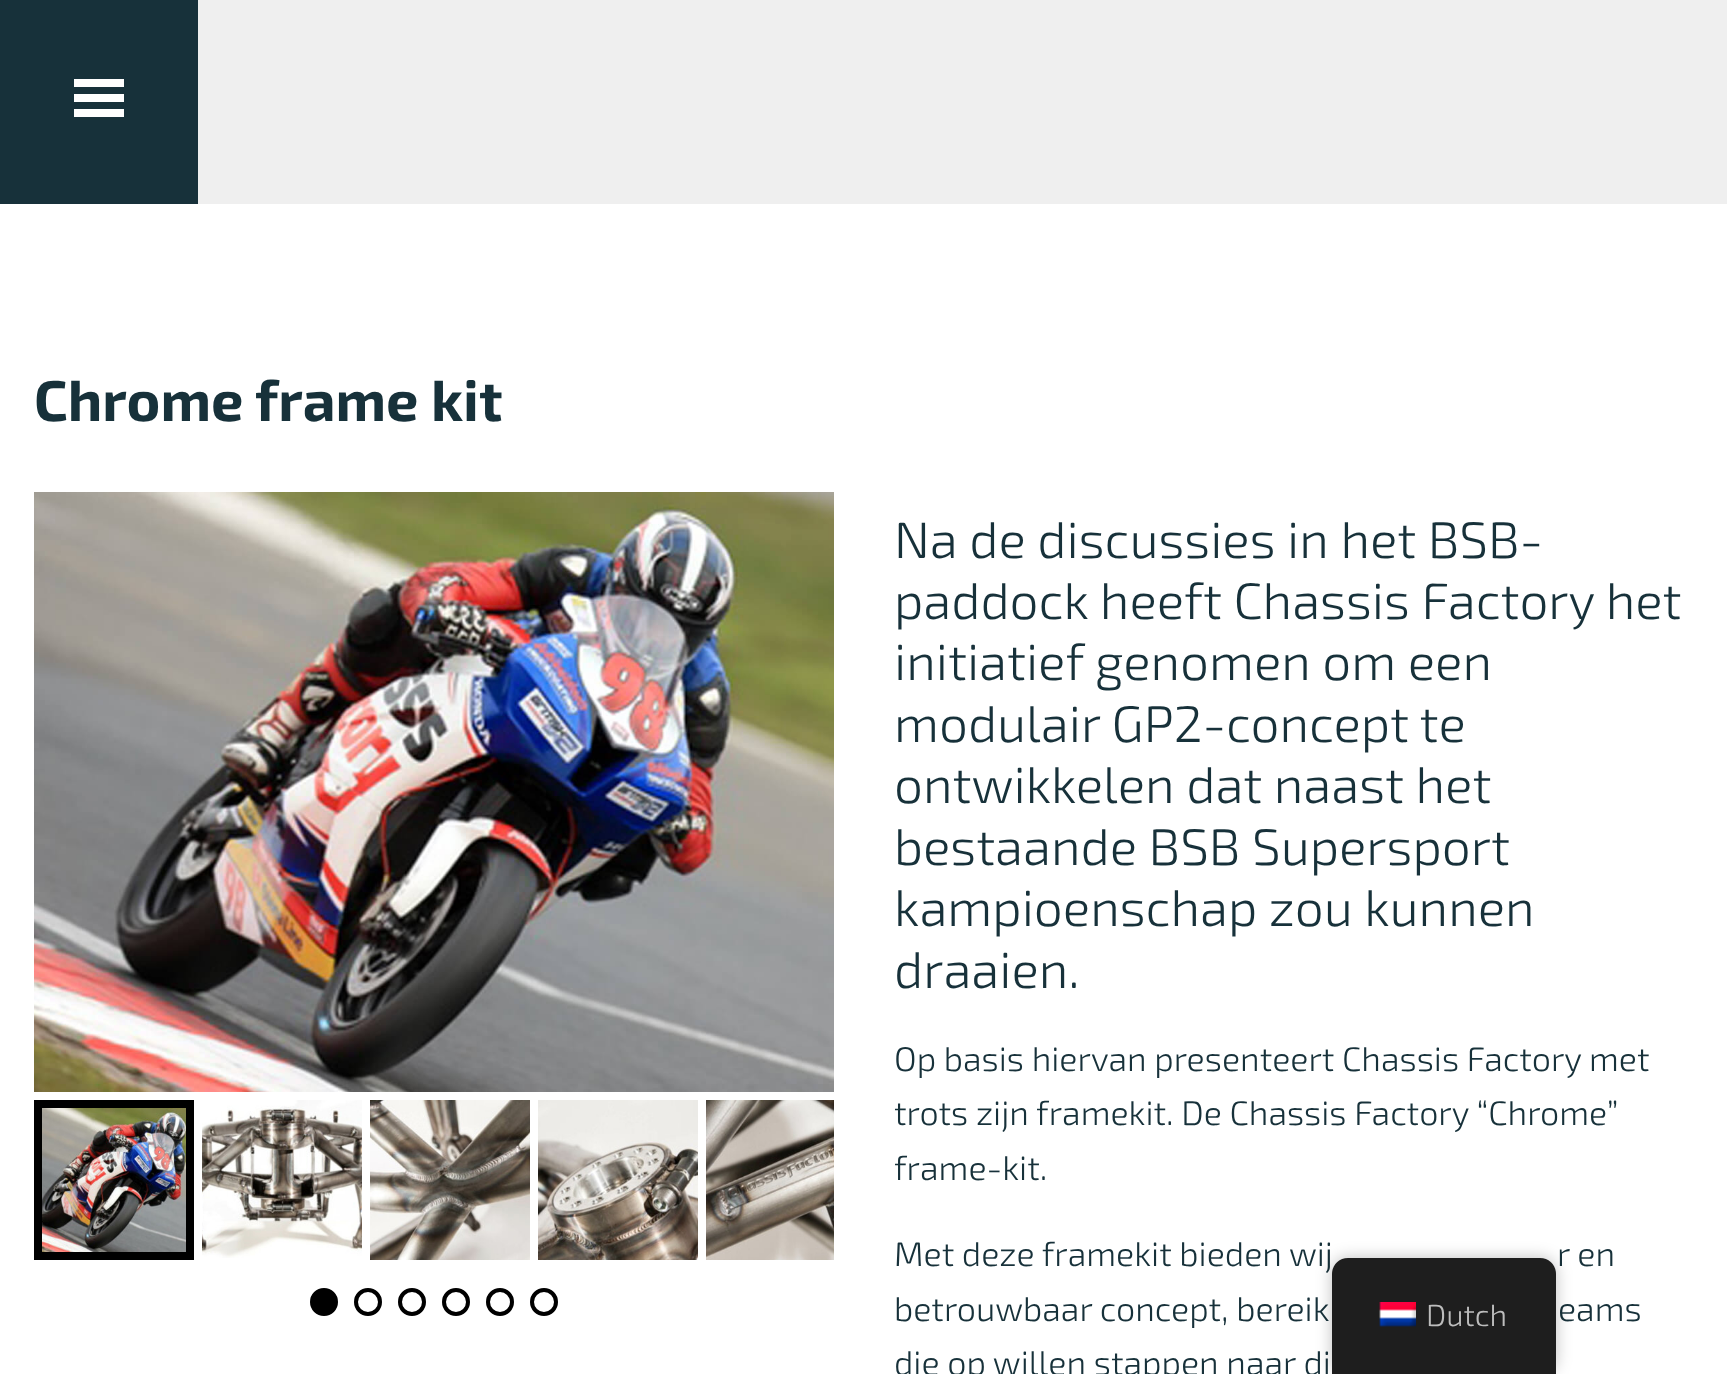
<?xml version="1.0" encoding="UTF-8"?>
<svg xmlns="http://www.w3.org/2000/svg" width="1727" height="1374">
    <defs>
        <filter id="blur1" x="-50%" y="-200%" width="200%" height="500%"><feGaussianBlur stdDeviation="8"/></filter>
    </defs>
    <rect width="100%" height="100%" fill="#FFFFFF"/>
    <rect x="198" y="0" width="1529" height="204" fill="#EFEFEF"/>
    <rect x="0" y="0" width="198" height="204" fill="#17313A"/>
    <rect x="74" y="79" width="50" height="8" fill="#FFFFFF"/>
    <rect x="74" y="94" width="50" height="8" fill="#FFFFFF"/>
    <rect x="74" y="109" width="50" height="8" fill="#FFFFFF"/>
    <text x="34" y="421" font-family="'Exo 2'" font-size="57.5" font-weight="700" fill="#17313A">Chrome frame kit</text>
    <image x="34" y="492" width="800" height="600" href="img_01.png"/>
    <rect x="38" y="1104" width="152" height="152" fill="none" stroke="#000000" stroke-width="8"/>
    <image x="42" y="1108" width="144" height="144" href="img_02.png"/>
    <image x="202" y="1100" width="160" height="158" href="img_03.png"/>
    <image x="370" y="1100" width="160" height="160" href="img_04.png"/>
    <image x="538" y="1100" width="160" height="160" href="img_05.png"/>
    <image x="706" y="1100" width="128" height="160" href="img_06.png"/>
    <circle cx="324" cy="1302" r="12" fill="#000000" stroke="#000000" stroke-width="4"/>
    <circle cx="368" cy="1302" r="12" fill="none" stroke="#000000" stroke-width="4"/>
    <circle cx="412" cy="1302" r="12" fill="none" stroke="#000000" stroke-width="4"/>
    <circle cx="456" cy="1302" r="12" fill="none" stroke="#000000" stroke-width="4"/>
    <circle cx="500" cy="1302" r="12" fill="none" stroke="#000000" stroke-width="4"/>
    <circle cx="544" cy="1302" r="12" fill="none" stroke="#000000" stroke-width="4"/>
    <text font-family="'Exo 2'" font-size="51.25" font-weight="300" fill="#17313A">
        <tspan x="894" y="558">Na de discussies in het BSB-</tspan>
        <tspan x="894" y="619">paddock heeft Chassis Factory het</tspan>
        <tspan x="894" y="680">initiatief genomen om een</tspan>
        <tspan x="894" y="742">modulair GP2-concept te</tspan>
        <tspan x="894" y="803">ontwikkelen dat naast het</tspan>
        <tspan x="894" y="865">bestaande BSB Supersport</tspan>
        <tspan x="894" y="926">kampioenschap zou kunnen</tspan>
        <tspan x="894" y="988">draaien.</tspan>
    </text>
    <text font-family="'Exo 2'" font-size="34" font-weight="300" fill="#17313A">
        <tspan x="894" y="1071">Op basis hiervan presenteert Chassis Factory met</tspan>
        <tspan x="894" y="1125">trots zijn framekit. De Chassis Factory “Chrome”</tspan>
        <tspan x="894" y="1180">frame-kit.</tspan>
    </text>
    <text x="894" y="1266" font-family="'Exo 2'" font-size="34" font-weight="300" fill="#17313A">Met deze framekit bieden wij</text>
    <text x="1557" y="1266" font-family="'Exo 2'" font-size="34" font-weight="300" fill="#17313A">r en</text>
    <text x="894" y="1321" font-family="'Exo 2'" font-size="34" font-weight="300" fill="#17313A">betrouwbaar concept, bereik</text>
    <text x="1558" y="1321" font-family="'Exo 2'" font-size="34" font-weight="300" fill="#17313A">eams</text>
    <text x="894" y="1375" font-family="'Exo 2'" font-size="34" font-weight="300" fill="#17313A">die op willen stappen naar di</text>
    <rect x="1332" y="1258" width="224" height="116" rx="16" fill="#000000" fill-opacity="0.25" filter="url(#blur1)"/>
    <path d="M 1348 1258 H 1540 C 1549 1258 1556 1265 1556 1274 V 1374 H 1332 V 1274 C 1332 1265 1339 1258 1348 1258 Z" fill="#1E1E1E"/>
    <image x="1379" y="1302" width="37" height="25" href="img_07.png"/>
    <text x="1426" y="1326" font-family="'Exo 2'" font-size="30.5" font-weight="300" fill="#BDBDBD">Dutch</text>
</svg>
